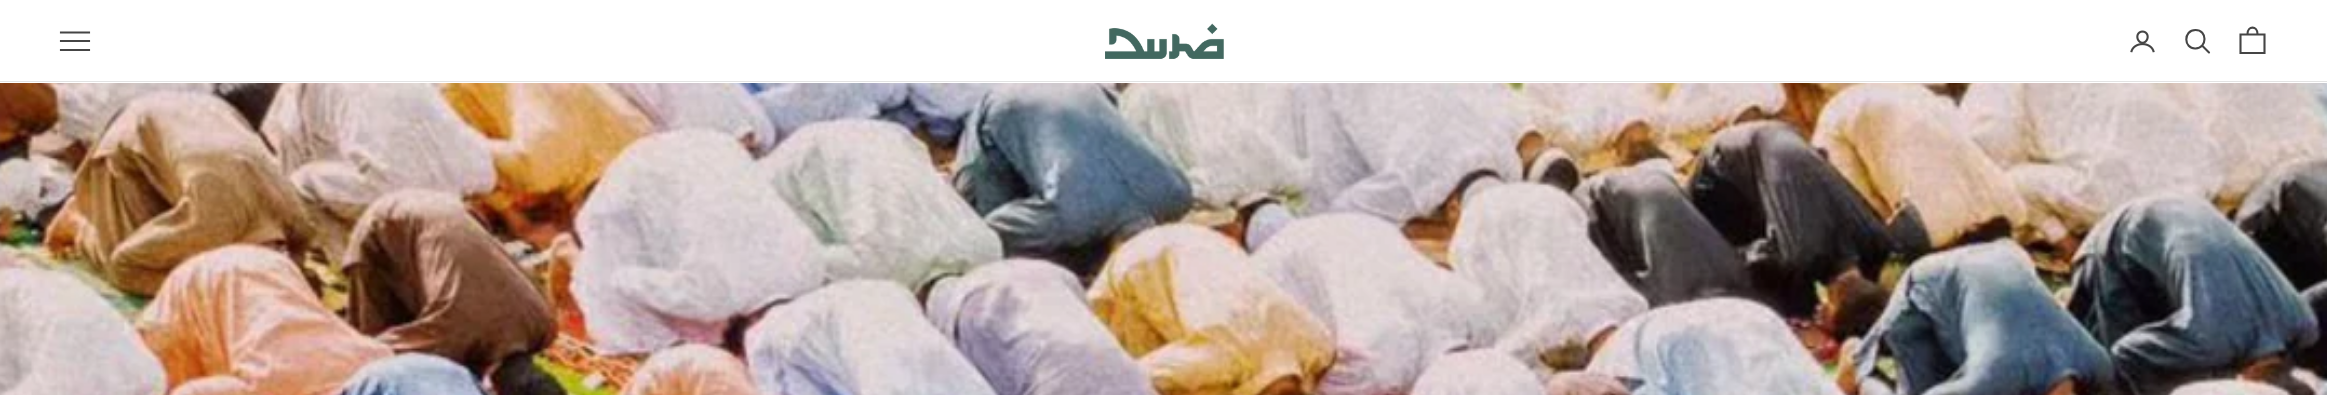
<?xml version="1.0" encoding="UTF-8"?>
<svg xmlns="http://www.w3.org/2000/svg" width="2327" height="395">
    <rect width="100%" height="100%" fill="#FFFFFF"/>
    <rect x="0" y="81" width="2327" height="1" fill="#E3E3E3"/>
    <path d="M 61 50 H 89 M 61 41 H 89 M 61 32.5 H 89" fill="none" stroke="#454545" stroke-width="2.1" stroke-linecap="square"/>
    <image x="1105" y="23" width="119" height="36" href="img_01.png"/>
    <image x="2130" y="30" width="25" height="23" href="img_02.png"/>
    <path d="M 2195.5 30 C 2183 30 2183.5 49 2195.5 48.5 C 2207.5 48 2207.5 30 2195.5 30 Z" fill="none" stroke="#454545" stroke-width="2.1"/>
    <path d="M 2202.5 46 L 2209 52.5" fill="none" stroke="#454545" stroke-width="2.1" stroke-linecap="round"/>
    <path d="M 2264.5 53 V 34.5 H 2240.5 V 53 Z M 2247.5 34 C 2247.5 25.5 2257.5 25.5 2257.5 34" fill="none" stroke="#454545" stroke-width="2.1"/>
    <image x="0" y="83" width="2327" height="312" href="img_03.png"/>
</svg>
